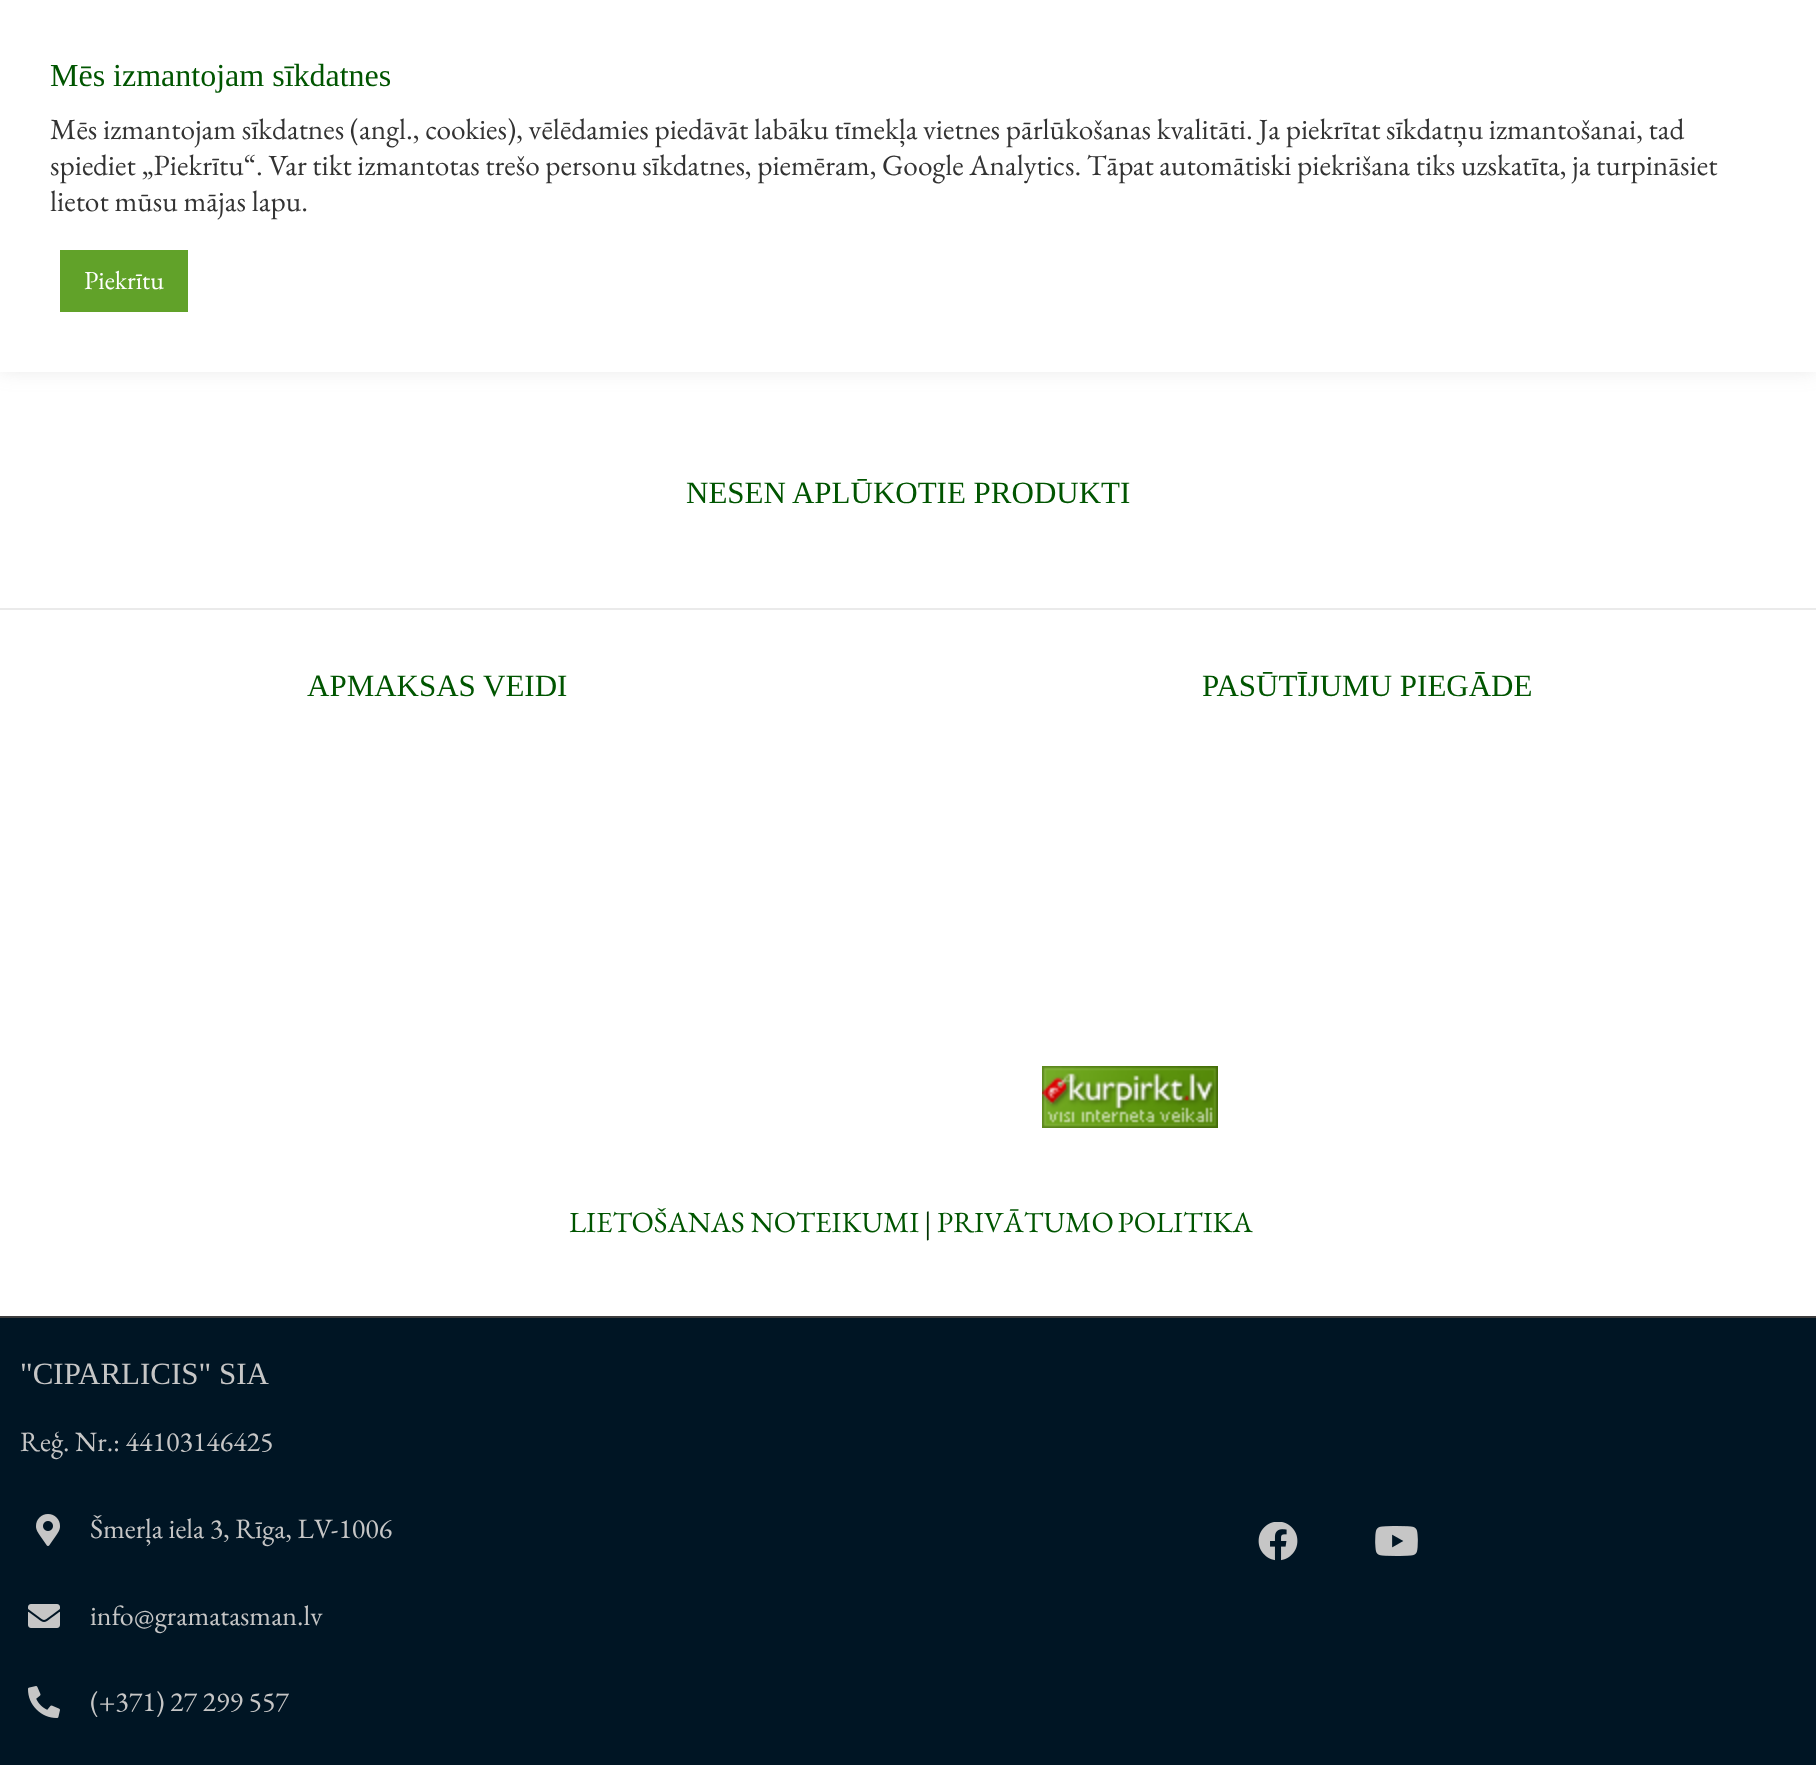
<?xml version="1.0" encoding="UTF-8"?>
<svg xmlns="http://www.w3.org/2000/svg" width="1816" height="1765">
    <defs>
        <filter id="blur1" x="-50%" y="-200%" width="200%" height="500%"><feGaussianBlur stdDeviation="10"/></filter>
    </defs>
    <rect width="100%" height="100%" fill="#FFFFFF"/>
    <rect x="0" y="-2" width="1816" height="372" fill="#ACABAB" fill-opacity="0.3" filter="url(#blur1)"/>
    <rect x="0" y="0" width="1816" height="372" fill="#FFFFFF"/>
    <text x="50" y="86" font-family="Liberation Serif" font-size="32" fill="#005500">Mēs izmantojam sīkdatnes</text>
    <text font-family="EB Garamond" font-size="29.33" fill="#333333">
        <tspan x="50" y="139" word-spacing="-0.25">Mēs izmantojam sīkdatnes (angl., cookies), vēlēdamies piedāvāt labāku tīmekļa vietnes pārlūkošanas kvalitāti. Ja piekrītat sīkdatņu izmantošanai, tad</tspan>
        <tspan x="50" y="175" word-spacing="-0.25">spiediet „Piekrītu“. Var tikt izmantotas trešo personu sīkdatnes, piemēram, Google Analytics. Tāpat automātiski piekrišana tiks uzskatīta, ja turpināsiet</tspan>
        <tspan x="50" y="211">lietot mūsu mājas lapu.</tspan>
    </text>
    <rect x="60" y="250" width="128" height="62" fill="#61A229"/>
    <text x="84" y="289" font-family="EB Garamond" font-size="26" fill="#FFFFFF">Piekrītu</text>
    <rect x="0" y="608" width="1816" height="2" fill="#EAEAEA"/>
    <text x="686" y="503" font-family="Liberation Serif" font-size="31" fill="#005500">NESEN APLŪKOTIE PRODUKTI</text>
    <text x="307" y="696" font-family="Liberation Serif" font-size="31" fill="#005500">APMAKSAS VEIDI</text>
    <text x="1202" y="696" font-family="Liberation Serif" font-size="31" fill="#005500">PASŪTĪJUMU PIEGĀDE</text>
    <image x="1042" y="1066" width="176" height="62" href="img_01.png"/>
    <text x="569" y="1232" font-family="EB Garamond" font-size="29.25" fill="#005500">LIETOŠANAS NOTEIKUMI</text>
    <text x="924" y="1232" font-family="EB Garamond" font-size="29.25" fill="#003300">|</text>
    <text x="937" y="1232" word-spacing="-2" font-family="EB Garamond" font-size="29.25" fill="#005500">PRIVĀTUMO POLITIKA</text>
    <rect x="0" y="1318" width="1816" height="447" fill="#001524"/>
    <rect x="0" y="1316" width="1816" height="2" fill="#3D3D3D"/>
    <text x="20" y="1384" font-family="Liberation Serif" font-size="31" fill="#C6C6C6">"CIPARLICIS" SIA</text>
    <text x="20" y="1451" font-family="EB Garamond" font-size="28" fill="#C6C6C6">Reģ. Nr.: 44103146425</text>
    <image x="36" y="1514" width="24" height="32" href="img_02.png"/>
    <text x="90" y="1538" font-family="EB Garamond" font-size="28" fill="#C6C6C6">Šmerļa iela 3, Rīga, LV-1006</text>
    <image x="28" y="1604" width="32" height="24" href="img_03.png"/>
    <text x="90" y="1625" font-family="EB Garamond" font-size="28" fill="#C6C6C6">info@gramatasman.lv</text>
    <image x="28" y="1686" width="32" height="32" href="img_04.png"/>
    <text x="90" y="1711" font-family="EB Garamond" font-size="28" fill="#C6C6C6">(+371) 27 299 557</text>
    <image x="1258" y="1522" width="40" height="39" href="img_05.png"/>
    <image x="1375" y="1526" width="43" height="30" href="img_06.png"/>
</svg>
